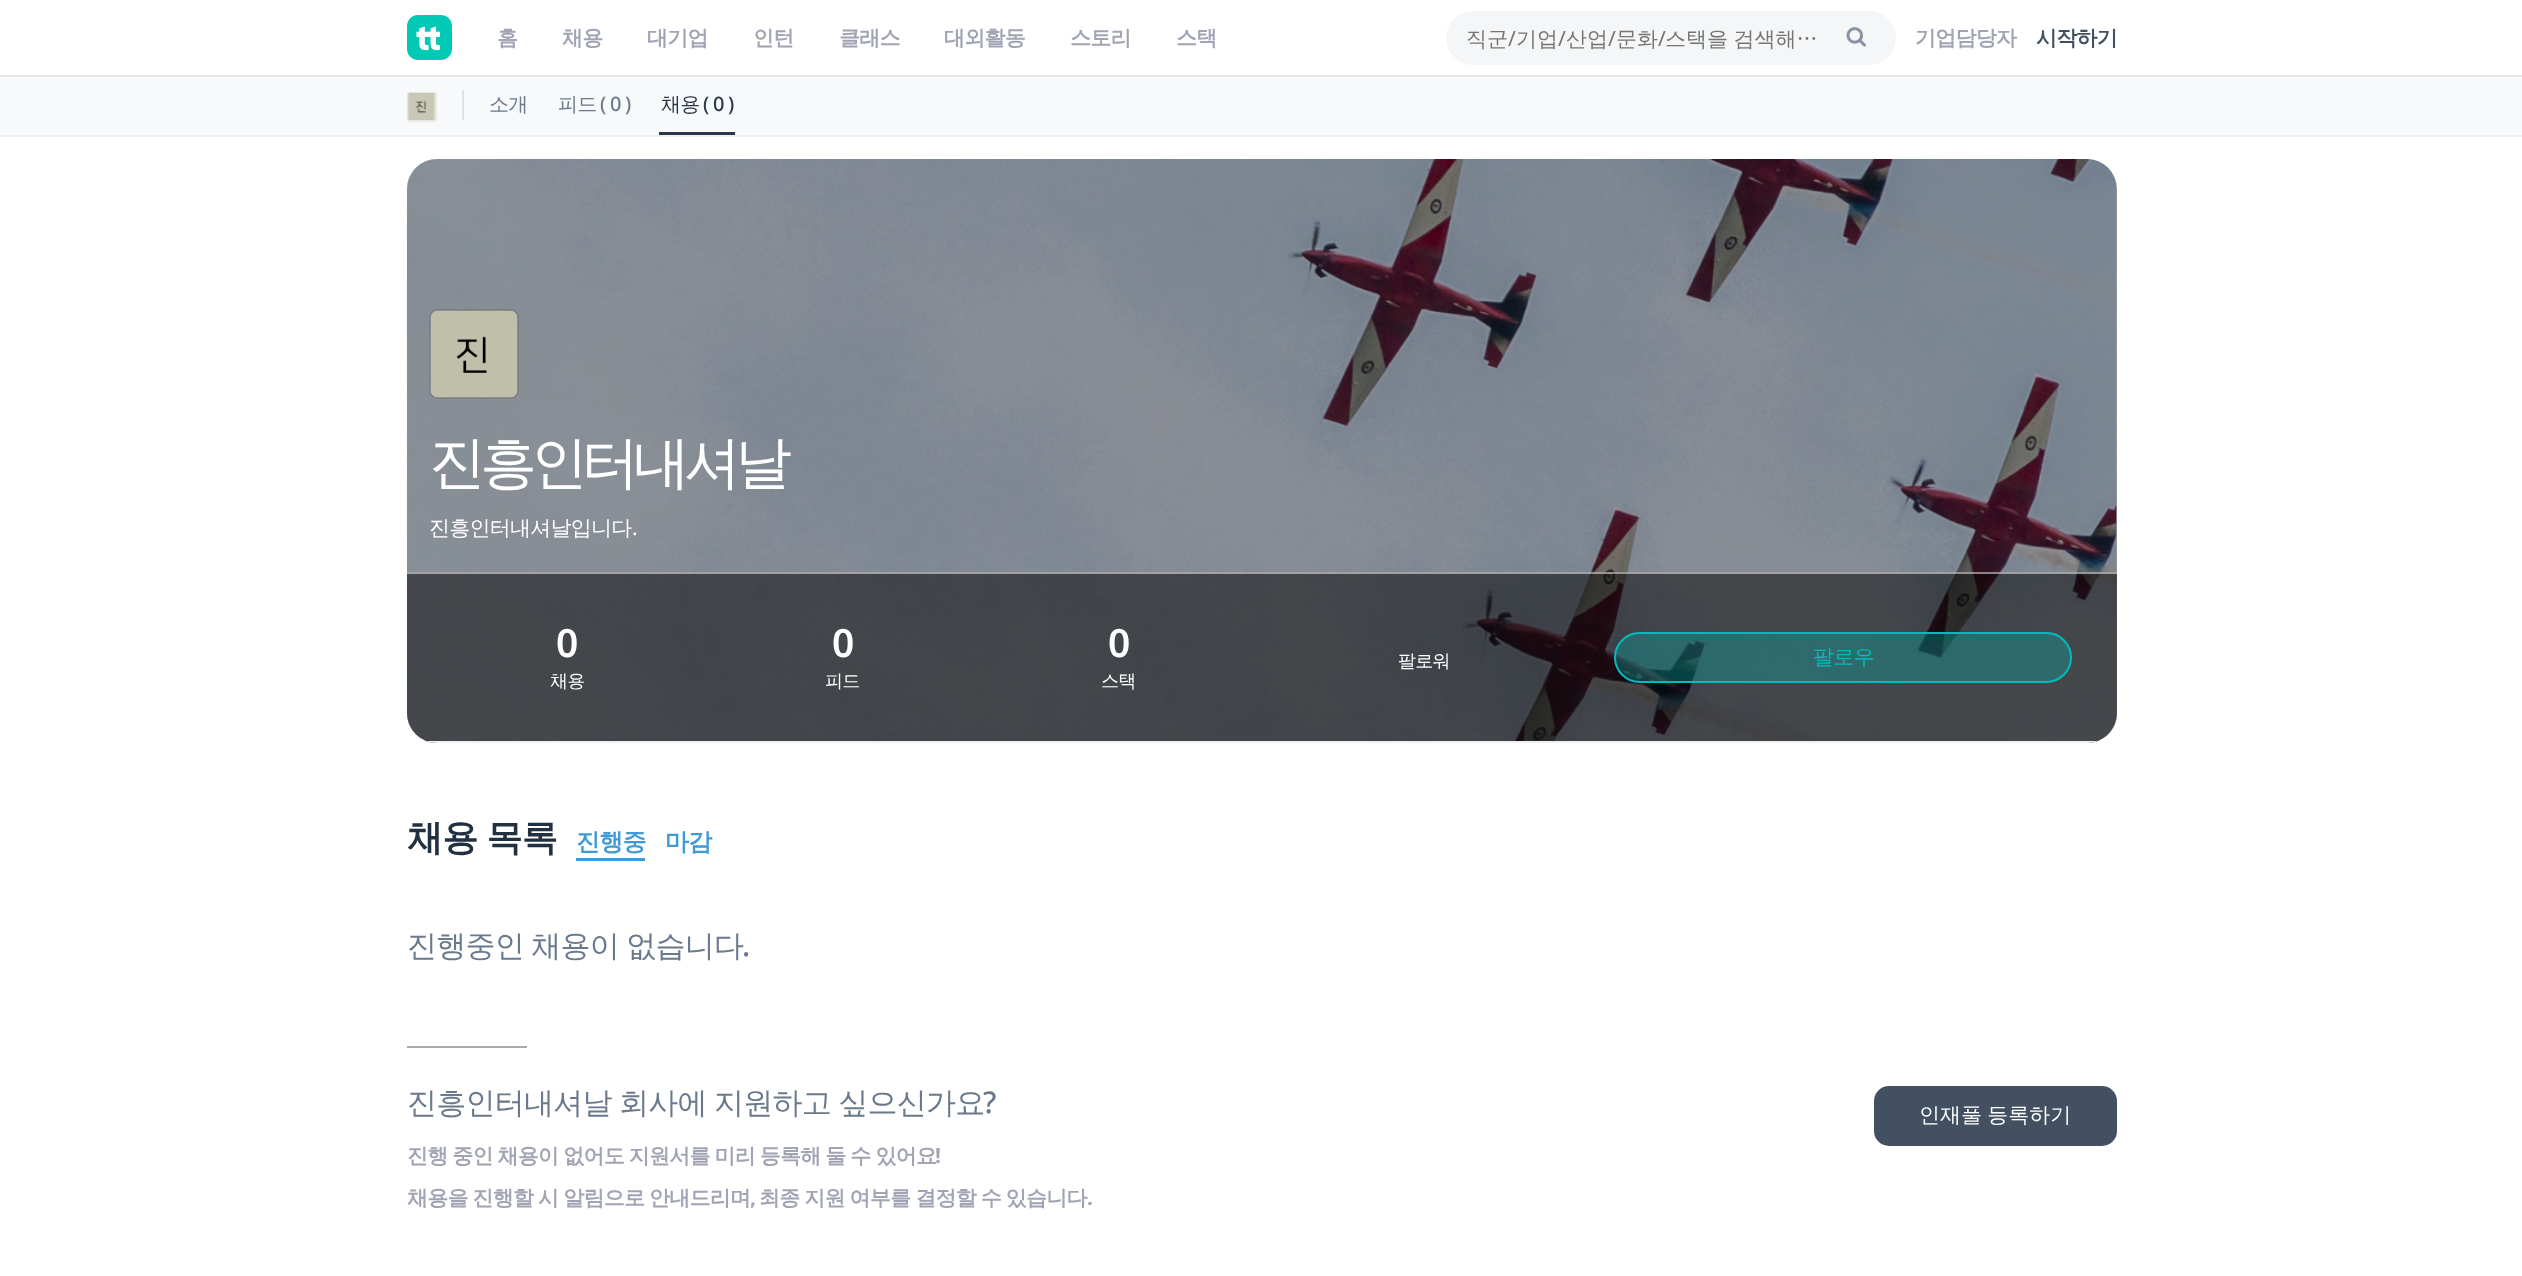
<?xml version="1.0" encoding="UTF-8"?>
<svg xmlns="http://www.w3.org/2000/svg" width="2522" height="1276">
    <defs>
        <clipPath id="clip1"><rect x="407" y="159" width="1710" height="584" rx="30"/></clipPath>
    </defs>
    <rect width="100%" height="100%" fill="#FFFFFF"/>
    <rect x="0" y="75" width="2522" height="2" fill="#E7E7E7"/>
    <image x="407" y="15" width="45" height="45" href="img_01.png"/>
    <text x="497" y="45" font-family="WenQuanYi Zen Hei" font-size="21" font-weight="700" letter-spacing="-0.75" fill="#A1A4B4">홈</text>
    <text x="562" y="45" font-family="WenQuanYi Zen Hei" font-size="21" font-weight="700" letter-spacing="-0.75" fill="#A1A4B4">채용</text>
    <text x="647" y="45" font-family="WenQuanYi Zen Hei" font-size="21" font-weight="700" letter-spacing="-0.75" fill="#A1A4B4">대기업</text>
    <text x="753" y="45" font-family="WenQuanYi Zen Hei" font-size="21" font-weight="700" letter-spacing="-0.75" fill="#A1A4B4">인턴</text>
    <text x="839" y="45" font-family="WenQuanYi Zen Hei" font-size="21" font-weight="700" letter-spacing="-0.75" fill="#A1A4B4">클래스</text>
    <text x="944" y="45" font-family="WenQuanYi Zen Hei" font-size="21" font-weight="700" letter-spacing="-0.75" fill="#A1A4B4">대외활동</text>
    <text x="1070" y="45" font-family="WenQuanYi Zen Hei" font-size="21" font-weight="700" letter-spacing="-0.75" fill="#A1A4B4">스토리</text>
    <text x="1176" y="45" font-family="WenQuanYi Zen Hei" font-size="21" font-weight="700" letter-spacing="-0.75" fill="#A1A4B4">스택</text>
    <rect x="1446" y="11" width="450" height="54" rx="27" fill="#F4F6F7"/>
    <text x="1466" y="46" font-family="WenQuanYi Zen Hei" font-size="21" font-weight="500" fill="#757575">직군</text>
    <text x="1508" y="46" font-family="Noto Sans" font-size="21" fill="#757575">/</text>
    <text x="1516" y="46" font-family="WenQuanYi Zen Hei" font-size="21" font-weight="500" fill="#757575">기업</text>
    <text x="1558" y="46" font-family="Noto Sans" font-size="21" fill="#757575">/</text>
    <text x="1566" y="46" font-family="WenQuanYi Zen Hei" font-size="21" font-weight="500" fill="#757575">산업</text>
    <text x="1608" y="46" font-family="Noto Sans" font-size="21" fill="#757575">/</text>
    <text x="1616" y="46" font-family="WenQuanYi Zen Hei" font-size="21" font-weight="500" fill="#757575">문화</text>
    <text x="1658" y="46" font-family="Noto Sans" font-size="21" fill="#757575">/</text>
    <text x="1665" y="46" word-spacing="-0.75" font-family="WenQuanYi Zen Hei" font-size="21" font-weight="500" fill="#757575">스택을 검색해…</text>
    <image x="1846" y="27" width="20" height="20" href="img_02.png"/>
    <text x="1915" y="45" font-family="WenQuanYi Zen Hei" font-size="21" font-weight="700" letter-spacing="-0.75" fill="#A1A4B4">기업담당자</text>
    <text x="2036" y="45" font-family="WenQuanYi Zen Hei" font-size="21" font-weight="700" letter-spacing="-0.75" fill="#435061">시작하기</text>
    <rect x="0" y="77" width="2522" height="58" fill="#F8F9FA"/>
    <rect x="0" y="135" width="2522" height="2" fill="#EFF0F2"/>
    <rect x="407" y="92" width="30" height="30" rx="3" fill="#FFFFFF"/>
    <rect x="408" y="93" width="28" height="28" rx="2" fill="none" stroke="#202020" stroke-opacity="0.1" stroke-width="2"/>
    <image x="407" y="93" width="29" height="27" href="img_03.png"/>
    <rect x="462" y="90" width="2" height="30" fill="#E0E1E2"/>
    <text x="489" y="111" font-family="WenQuanYi Zen Hei" font-size="20" font-weight="500" letter-spacing="-0.75" fill="#6A7A8C">소개</text>
    <text x="558" y="111" font-family="WenQuanYi Zen Hei" font-size="20" font-weight="500" letter-spacing="-0.75" fill="#6A7A8C">피드</text>
    <text x="600" y="111" font-family="Noto Sans" font-size="20" font-weight="500" letter-spacing="-0.75" fill="#6A7A8C">( 0 )</text>
    <rect x="659" y="132" width="76" height="3" fill="#293747"/>
    <text x="661" y="111" font-family="WenQuanYi Zen Hei" font-size="20" font-weight="500" letter-spacing="-0.75" fill="#293747">채용</text>
    <text x="703" y="111" font-family="Noto Sans" font-size="20" font-weight="500" letter-spacing="-0.75" fill="#293747">( 0 )</text>
    <image x="406" y="159" width="1711" height="584" href="img_04.png"/>
    <rect x="407" y="159" width="1710" height="584" rx="30" fill="#000000" fill-opacity="0.4"/>
    <rect x="430" y="310" width="88" height="88" rx="8" fill="none" stroke="#000000" stroke-opacity="0.1" stroke-width="2"/>
    <image x="430" y="310" width="88" height="88" href="img_05.png"/>
    <text x="429" y="482" font-family="WenQuanYi Zen Hei" font-size="57" font-weight="500" letter-spacing="-6" fill="#FFFFFF">진흥인터내셔날</text>
    <text x="429" y="535" font-family="WenQuanYi Zen Hei" font-size="21" font-weight="500" letter-spacing="-0.75" fill="#FFFFFF">진흥인터내셔날입니다</text>
    <text x="632" y="535" font-family="Noto Sans" font-size="21" letter-spacing="-0.75" fill="#FFFFFF">.</text>
    <path d="M 407 572 H 2117 V 713 C 2117 729.5 2103.5 743 2087 743 H 437 C 420.5 743 407 729.5 407 713 Z" fill="#000000" fill-opacity="0.5"/>
    <rect x="407" y="572" width="1710" height="2" fill="#FFFFFF" fill-opacity="0.5"/>
    <g clip-path="url(#clip1)">
        <rect x="426" y="741" width="1672" height="2" fill="#EEF0F2"/>
    </g>
    <text x="556" y="657" font-family="Noto Sans" font-size="39" font-weight="600" letter-spacing="-0.75" fill="#FFFFFF">0</text>
    <text x="550" y="687" font-family="WenQuanYi Zen Hei" font-size="18" font-weight="500" letter-spacing="-0.75" fill="#FFFFFF">채용</text>
    <text x="832" y="657" font-family="Noto Sans" font-size="39" font-weight="600" letter-spacing="-0.75" fill="#FFFFFF">0</text>
    <text x="825" y="687" font-family="WenQuanYi Zen Hei" font-size="18" font-weight="500" letter-spacing="-0.75" fill="#FFFFFF">피드</text>
    <text x="1108" y="657" font-family="Noto Sans" font-size="39" font-weight="600" letter-spacing="-0.75" fill="#FFFFFF">0</text>
    <text x="1101" y="687" font-family="WenQuanYi Zen Hei" font-size="18" font-weight="500" letter-spacing="-0.75" fill="#FFFFFF">스택</text>
    <text x="1398" y="667" font-family="WenQuanYi Zen Hei" font-size="18" font-weight="500" letter-spacing="-0.75" fill="#FFFFFF">팔로워</text>
    <rect x="1615" y="633" width="456" height="49" rx="24.5" fill="#00BCBD" fill-opacity="0.3" stroke="#00BCBD" stroke-width="2"/>
    <text x="1813" y="664" font-family="WenQuanYi Zen Hei" font-size="21" font-weight="500" letter-spacing="-0.75" fill="#00BCBD">팔로우</text>
    <text x="407" y="850" word-spacing="-1" font-family="WenQuanYi Zen Hei" font-size="36" font-weight="700" letter-spacing="-0.75" fill="#223141">채용 목록</text>
    <text x="576" y="850" font-family="WenQuanYi Zen Hei" font-size="24" font-weight="700" letter-spacing="-0.75" fill="#3F9AD6">진행중</text>
    <rect x="576" y="858" width="69" height="3" fill="#3F9AD6"/>
    <text x="665" y="850" font-family="WenQuanYi Zen Hei" font-size="24" font-weight="700" letter-spacing="-0.75" fill="#3F9AD6">마감</text>
    <text x="407" y="956" word-spacing="-1" font-family="WenQuanYi Zen Hei" font-size="30" font-weight="500" letter-spacing="-0.75" fill="#6A7A8C">진행중인 채용이 없습니다</text>
    <text x="742" y="956" font-family="Noto Sans" font-size="30" font-weight="500" letter-spacing="-0.75" fill="#6A7A8C">.</text>
    <rect x="407" y="1046" width="120" height="2" fill="#AAAAAA"/>
    <text x="407" y="1113" word-spacing="-1" font-family="WenQuanYi Zen Hei" font-size="30" font-weight="500" letter-spacing="-0.75" fill="#6A7A8C">진흥인터내셔날 회사에 지원하고 싶으신가요</text>
    <text x="983" y="1113" font-family="Noto Sans" font-size="30" font-weight="500" letter-spacing="-0.75" fill="#6A7A8C">?</text>
    <rect x="1874" y="1086" width="243" height="60" rx="15" fill="#435061"/>
    <text x="1919" y="1122" word-spacing="-1" font-family="WenQuanYi Zen Hei" font-size="21" font-weight="500" fill="#FFFFFF">인재풀 등록하기</text>
    <text x="407" y="1163" word-spacing="-0.75" font-family="WenQuanYi Zen Hei" font-size="21" font-weight="700" letter-spacing="-0.75" fill="#A1A4B4">진행 중인 채용이 없어도 지원서를 미리 등록해 둘 수 있어요</text>
    <text x="935" y="1163" font-family="Noto Sans" font-size="21" font-weight="700" letter-spacing="-0.75" fill="#A1A4B4">!</text>
    <text x="407" y="1205" word-spacing="-0.75" font-family="WenQuanYi Zen Hei" font-size="21" font-weight="700" letter-spacing="-0.75" fill="#A1A4B4">채용을 진행할 시 알림으로 안내드리며</text>
    <text x="750" y="1205" font-family="Noto Sans" font-size="21" font-weight="700" letter-spacing="-0.75" fill="#A1A4B4">,</text>
    <text x="759" y="1205" word-spacing="-0.75" font-family="WenQuanYi Zen Hei" font-size="21" font-weight="700" letter-spacing="-0.75" fill="#A1A4B4">최종 지원 여부를 결정할 수 있습니다</text>
    <text x="1087" y="1205" font-family="Noto Sans" font-size="21" font-weight="700" letter-spacing="-0.75" fill="#A1A4B4">.</text>
</svg>
